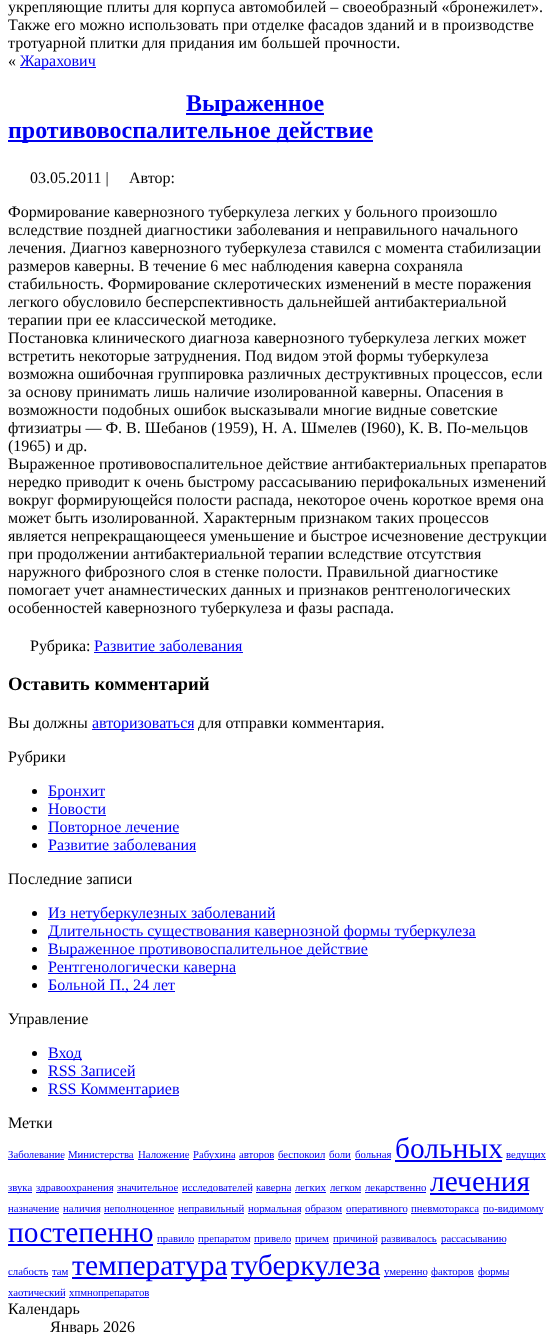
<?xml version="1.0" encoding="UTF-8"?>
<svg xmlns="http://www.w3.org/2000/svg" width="557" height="1334">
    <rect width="100%" height="100%" fill="#FFFFFF"/>
    <text font-family="Liberation Serif" font-size="16" fill="#000000">
        <tspan x="8" y="12">укрепляющие плиты для корпуса автомобилей – своеобразный «бронежилет».</tspan>
        <tspan x="8" y="30">Также его можно использовать при отделке фасадов зданий и в производстве</tspan>
        <tspan x="8" y="48">тротуарной плитки для придания им большей прочности.</tspan>
        <tspan x="8" y="66">«</tspan>
    </text>
    <rect x="20" y="67" width="76" height="1" fill="#0000EE"/>
    <text x="20" y="66" font-family="Liberation Serif" font-size="16" fill="#0000EE">Жарахович</text>
    <rect x="186" y="113" width="138" height="2" fill="#0000EE"/>
    <text x="186" y="111" font-family="Liberation Serif" font-size="24" font-weight="700" fill="#0000EE">Выраженное</text>
    <rect x="8" y="140" width="365" height="2" fill="#0000EE"/>
    <text x="8" y="138" font-family="Liberation Serif" font-size="24" font-weight="700" fill="#0000EE">противовоспалительное действие</text>
    <text x="30" y="183" font-family="Liberation Serif" font-size="16" fill="#000000">03.05.2011 |</text>
    <text x="129" y="183" font-family="Liberation Serif" font-size="16" fill="#000000">Автор:</text>
    <text font-family="Liberation Serif" font-size="16" fill="#000000">
        <tspan x="8" y="217">Формирование кавернозного туберкулеза легких у больного произошло</tspan>
        <tspan x="8" y="235">вследствие поздней диагностики заболевания и неправильного начального</tspan>
        <tspan x="8" y="253">лечения. Диагноз кавернозного туберкулеза ставился с момента стабилизации</tspan>
        <tspan x="8" y="271">размеров каверны. В течение 6 мес наблюдения каверна сохраняла</tspan>
        <tspan x="8" y="289">стабильность. Формирование склеротических изменений в месте поражения</tspan>
        <tspan x="8" y="307">легкого обусловило бесперспективность дальнейшей антибактериальной</tspan>
        <tspan x="8" y="325">терапии при ее классической методике.</tspan>
        <tspan x="8" y="343">Постановка клинического диагноза кавернозного туберкулеза легких может</tspan>
        <tspan x="8" y="361">встретить некоторые затруднения. Под видом этой формы туберкулеза</tspan>
        <tspan x="8" y="379">возможна ошибочная группировка различных деструктивных процессов, если</tspan>
        <tspan x="8" y="397">за основу принимать лишь наличие изолированной каверны. Опасения в</tspan>
        <tspan x="8" y="415">возможности подобных ошибок высказывали многие видные советские</tspan>
        <tspan x="8" y="433">фтизиатры — Ф. В. Шебанов (1959), Н. А. Шмелев (I960), К. В. По-мельцов</tspan>
        <tspan x="8" y="451">(1965) и др.</tspan>
        <tspan x="8" y="469">Выраженное противовоспалительное действие антибактериальных препаратов</tspan>
        <tspan x="8" y="487">нередко приводит к очень быстрому рассасыванию перифокальных изменений</tspan>
        <tspan x="8" y="505">вокруг формирующейся полости распада, некоторое очень короткое время она</tspan>
        <tspan x="8" y="523">может быть изолированной. Характерным признаком таких процессов</tspan>
        <tspan x="8" y="541">является непрекращающееся уменьшение и быстрое исчезновение деструкции</tspan>
        <tspan x="8" y="559">при продолжении антибактериальной терапии вследствие отсутствия</tspan>
        <tspan x="8" y="577">наружного фиброзного слоя в стенке полости. Правильной диагностике</tspan>
        <tspan x="8" y="595">помогает учет анамнестических данных и признаков рентгенологических</tspan>
        <tspan x="8" y="613">особенностей кавернозного туберкулеза и фазы распада.</tspan>
    </text>
    <text x="30" y="651" font-family="Liberation Serif" font-size="16" fill="#000000">Рубрика:</text>
    <text x="94" y="651" font-family="Liberation Serif" font-size="16" fill="#0000EE">Развитие заболевания</text>
    <rect x="94" y="652" width="149" height="1" fill="#0000EE"/>
    <text x="8" y="690" font-family="Liberation Serif" font-size="18.75" font-weight="700" fill="#000000">Оставить комментарий</text>
    <text x="8" y="728" font-family="Liberation Serif" font-size="16" fill="#000000">Вы должны</text>
    <rect x="92" y="729" width="102" height="1" fill="#0000EE"/>
    <text x="92" y="728" font-family="Liberation Serif" font-size="16" fill="#0000EE">авторизоваться</text>
    <text x="198" y="728" font-family="Liberation Serif" font-size="16" fill="#000000">для отправки комментария.</text>
    <text x="8" y="762" font-family="Liberation Serif" font-size="16" fill="#000000">Рубрики</text>
    <circle cx="34.5" cy="791.5" r="2.5" fill="#000000"/>
    <rect x="48" y="797" width="57" height="1" fill="#0000EE"/>
    <text x="48" y="796" font-family="Liberation Serif" font-size="16" fill="#0000EE">Бронхит</text>
    <circle cx="34.5" cy="809.5" r="2.5" fill="#000000"/>
    <text x="48" y="814" font-family="Liberation Serif" font-size="16" fill="#0000EE">Новости</text>
    <rect x="48" y="815" width="58" height="1" fill="#0000EE"/>
    <circle cx="34.5" cy="827.5" r="2.5" fill="#000000"/>
    <rect x="48" y="833" width="131" height="1" fill="#0000EE"/>
    <text x="48" y="832" font-family="Liberation Serif" font-size="16" fill="#0000EE">Повторное лечение</text>
    <circle cx="34.5" cy="845.5" r="2.5" fill="#000000"/>
    <text x="48" y="850" font-family="Liberation Serif" font-size="16" fill="#0000EE">Развитие заболевания</text>
    <rect x="48" y="851" width="148" height="1" fill="#0000EE"/>
    <text x="8" y="884" font-family="Liberation Serif" font-size="16" fill="#000000">Последние записи</text>
    <circle cx="34.5" cy="913.5" r="2.5" fill="#000000"/>
    <rect x="48" y="919" width="227" height="1" fill="#0000EE"/>
    <text x="48" y="918" font-family="Liberation Serif" font-size="16" fill="#0000EE">Из нетуберкулезных заболеваний</text>
    <circle cx="34.5" cy="931.5" r="2.5" fill="#000000"/>
    <rect x="48" y="937" width="428" height="1" fill="#0000EE"/>
    <text x="48" y="936" font-family="Liberation Serif" font-size="16" fill="#0000EE">Длительность существования кавернозной формы туберкулеза</text>
    <circle cx="34.5" cy="949.5" r="2.5" fill="#000000"/>
    <rect x="48" y="955" width="320" height="1" fill="#0000EE"/>
    <text x="48" y="954" font-family="Liberation Serif" font-size="16" fill="#0000EE">Выраженное противовоспалительное действие</text>
    <circle cx="34.5" cy="967.5" r="2.5" fill="#000000"/>
    <rect x="48" y="973" width="188" height="1" fill="#0000EE"/>
    <text x="48" y="972" font-family="Liberation Serif" font-size="16" fill="#0000EE">Рентгенологически каверна</text>
    <circle cx="34.5" cy="985.5" r="2.5" fill="#000000"/>
    <rect x="48" y="991" width="127" height="1" fill="#0000EE"/>
    <text x="48" y="990" font-family="Liberation Serif" font-size="16" fill="#0000EE">Больной П., 24 лет</text>
    <text x="8" y="1024" font-family="Liberation Serif" font-size="16" fill="#000000">Управление</text>
    <circle cx="34.5" cy="1053.5" r="2.5" fill="#000000"/>
    <rect x="48" y="1059" width="34" height="1" fill="#0000EE"/>
    <text x="48" y="1058" font-family="Liberation Serif" font-size="16" fill="#0000EE">Вход</text>
    <circle cx="34.5" cy="1071.5" r="2.5" fill="#000000"/>
    <text x="48" y="1076" font-family="Liberation Serif" font-size="16" fill="#0000EE">RSS Записей</text>
    <rect x="48" y="1077" width="87" height="1" fill="#0000EE"/>
    <circle cx="34.5" cy="1089.5" r="2.5" fill="#000000"/>
    <rect x="48" y="1095" width="131" height="1" fill="#0000EE"/>
    <text x="48" y="1094" font-family="Liberation Serif" font-size="16" fill="#0000EE">RSS Комментариев</text>
    <text x="8" y="1128" font-family="Liberation Serif" font-size="16" fill="#000000">Метки</text>
    <text x="8" y="1158" font-family="Liberation Serif" font-size="10.75" fill="#0000EE">Заболевание</text>
    <rect x="8" y="1159" width="56" height="1" fill="#0000EE"/>
    <rect x="68" y="1159" width="66" height="1" fill="#0000EE"/>
    <text x="68" y="1158" font-family="Liberation Serif" font-size="10.75" fill="#0000EE">Министерства</text>
    <text x="138" y="1158" font-family="Liberation Serif" font-size="10.75" fill="#0000EE">Наложение</text>
    <rect x="138" y="1159" width="51" height="1" fill="#0000EE"/>
    <rect x="193" y="1159" width="42" height="1" fill="#0000EE"/>
    <text x="193" y="1158" font-family="Liberation Serif" font-size="10.75" fill="#0000EE">Рабухина</text>
    <rect x="239" y="1159" width="35" height="1" fill="#0000EE"/>
    <text x="239" y="1158" font-family="Liberation Serif" font-size="10.75" fill="#0000EE">авторов</text>
    <text x="278" y="1158" font-family="Liberation Serif" font-size="10.75" fill="#0000EE">беспокоил</text>
    <rect x="278" y="1159" width="47" height="1" fill="#0000EE"/>
    <text x="329" y="1158" font-family="Liberation Serif" font-size="10.75" fill="#0000EE">боли</text>
    <rect x="329" y="1159" width="22" height="1" fill="#0000EE"/>
    <text x="355" y="1158" font-family="Liberation Serif" font-size="10.75" fill="#0000EE">больная</text>
    <rect x="355" y="1159" width="36" height="1" fill="#0000EE"/>
    <text x="395" y="1158" font-family="Liberation Serif" font-size="29.5" fill="#0000EE">больных</text>
    <rect x="395" y="1160" width="107" height="2" fill="#0000EE"/>
    <rect x="506" y="1159" width="40" height="1" fill="#0000EE"/>
    <text x="506" y="1158" font-family="Liberation Serif" font-size="10.75" fill="#0000EE">ведущих</text>
    <rect x="8" y="1192" width="24" height="1" fill="#0000EE"/>
    <text x="8" y="1191" font-family="Liberation Serif" font-size="10.75" fill="#0000EE">звука</text>
    <rect x="36" y="1192" width="77" height="1" fill="#0000EE"/>
    <text x="36" y="1191" font-family="Liberation Serif" font-size="10.75" fill="#0000EE">здравоохранения</text>
    <text x="117" y="1191" font-family="Liberation Serif" font-size="10.75" fill="#0000EE">значительное</text>
    <rect x="117" y="1192" width="61" height="1" fill="#0000EE"/>
    <rect x="182" y="1192" width="70" height="1" fill="#0000EE"/>
    <text x="182" y="1191" font-family="Liberation Serif" font-size="10.75" fill="#0000EE">исследователей</text>
    <rect x="256" y="1192" width="35" height="1" fill="#0000EE"/>
    <text x="256" y="1191" font-family="Liberation Serif" font-size="10.75" fill="#0000EE">каверна</text>
    <text x="295" y="1191" font-family="Liberation Serif" font-size="10.75" fill="#0000EE">легких</text>
    <rect x="295" y="1192" width="31" height="1" fill="#0000EE"/>
    <text x="330" y="1191" font-family="Liberation Serif" font-size="10.75" fill="#0000EE">легком</text>
    <rect x="330" y="1192" width="31" height="1" fill="#0000EE"/>
    <rect x="365" y="1192" width="61" height="1" fill="#0000EE"/>
    <text x="365" y="1191" font-family="Liberation Serif" font-size="10.75" fill="#0000EE">лекарственно</text>
    <text x="430" y="1191" font-family="Liberation Serif" font-size="29.5" fill="#0000EE">лечения</text>
    <rect x="430" y="1193" width="99" height="2" fill="#0000EE"/>
    <text x="8" y="1212" font-family="Liberation Serif" font-size="10.75" fill="#0000EE">назначение</text>
    <rect x="8" y="1213" width="51" height="1" fill="#0000EE"/>
    <text x="63" y="1212" font-family="Liberation Serif" font-size="10.75" fill="#0000EE">наличия</text>
    <rect x="63" y="1213" width="37" height="1" fill="#0000EE"/>
    <rect x="104" y="1213" width="70" height="1" fill="#0000EE"/>
    <text x="104" y="1212" font-family="Liberation Serif" font-size="10.75" fill="#0000EE">неполноценное</text>
    <rect x="178" y="1213" width="66" height="1" fill="#0000EE"/>
    <text x="178" y="1212" font-family="Liberation Serif" font-size="10.75" fill="#0000EE">неправильный</text>
    <rect x="248" y="1213" width="53" height="1" fill="#0000EE"/>
    <text x="248" y="1212" font-family="Liberation Serif" font-size="10.75" fill="#0000EE">нормальная</text>
    <rect x="305" y="1213" width="37" height="1" fill="#0000EE"/>
    <text x="305" y="1212" font-family="Liberation Serif" font-size="10.75" fill="#0000EE">образом</text>
    <rect x="346" y="1213" width="61" height="1" fill="#0000EE"/>
    <text x="346" y="1212" font-family="Liberation Serif" font-size="10.75" fill="#0000EE">оперативного</text>
    <rect x="411" y="1213" width="68" height="1" fill="#0000EE"/>
    <text x="411" y="1212" font-family="Liberation Serif" font-size="10.75" fill="#0000EE">пневмоторакса</text>
    <rect x="483" y="1213" width="60" height="1" fill="#0000EE"/>
    <text x="483" y="1212" font-family="Liberation Serif" font-size="10.75" fill="#0000EE">по-видимому</text>
    <text x="8" y="1242" font-family="Liberation Serif" font-size="29.5" fill="#0000EE">постепенно</text>
    <rect x="8" y="1244" width="145" height="2" fill="#0000EE"/>
    <rect x="157" y="1243" width="37" height="1" fill="#0000EE"/>
    <text x="157" y="1242" font-family="Liberation Serif" font-size="10.75" fill="#0000EE">правило</text>
    <rect x="198" y="1243" width="52" height="1" fill="#0000EE"/>
    <text x="198" y="1242" font-family="Liberation Serif" font-size="10.75" fill="#0000EE">препаратом</text>
    <rect x="254" y="1243" width="37" height="1" fill="#0000EE"/>
    <text x="254" y="1242" font-family="Liberation Serif" font-size="10.75" fill="#0000EE">привело</text>
    <rect x="295" y="1243" width="34" height="1" fill="#0000EE"/>
    <text x="295" y="1242" font-family="Liberation Serif" font-size="10.75" fill="#0000EE">причем</text>
    <rect x="333" y="1243" width="44" height="1" fill="#0000EE"/>
    <text x="333" y="1242" font-family="Liberation Serif" font-size="10.75" fill="#0000EE">причиной</text>
    <rect x="381" y="1243" width="56" height="1" fill="#0000EE"/>
    <text x="381" y="1242" font-family="Liberation Serif" font-size="10.75" fill="#0000EE">развивалось</text>
    <rect x="441" y="1243" width="65" height="1" fill="#0000EE"/>
    <text x="441" y="1242" font-family="Liberation Serif" font-size="10.75" fill="#0000EE">рассасыванию</text>
    <text x="8" y="1275" font-family="Liberation Serif" font-size="10.75" fill="#0000EE">слабость</text>
    <rect x="8" y="1276" width="40" height="1" fill="#0000EE"/>
    <text x="52" y="1275" font-family="Liberation Serif" font-size="10.75" fill="#0000EE">там</text>
    <rect x="52" y="1276" width="16" height="1" fill="#0000EE"/>
    <rect x="72" y="1277" width="155" height="2" fill="#0000EE"/>
    <text x="72" y="1275" font-family="Liberation Serif" font-size="29.5" fill="#0000EE">температура</text>
    <rect x="231" y="1277" width="149" height="2" fill="#0000EE"/>
    <text x="231" y="1275" font-family="Liberation Serif" font-size="29.5" fill="#0000EE">туберкулеза</text>
    <rect x="384" y="1276" width="43" height="1" fill="#0000EE"/>
    <text x="384" y="1275" font-family="Liberation Serif" font-size="10.75" fill="#0000EE">умеренно</text>
    <rect x="431" y="1276" width="43" height="1" fill="#0000EE"/>
    <text x="431" y="1275" font-family="Liberation Serif" font-size="10.75" fill="#0000EE">факторов</text>
    <rect x="478" y="1276" width="31" height="1" fill="#0000EE"/>
    <text x="478" y="1275" font-family="Liberation Serif" font-size="10.75" fill="#0000EE">формы</text>
    <text x="8" y="1296" font-family="Liberation Serif" font-size="10.75" fill="#0000EE">хаотический</text>
    <rect x="8" y="1297" width="57" height="1" fill="#0000EE"/>
    <rect x="69" y="1297" width="80" height="1" fill="#0000EE"/>
    <text x="69" y="1296" font-family="Liberation Serif" font-size="10.75" fill="#0000EE">хпмнопрепаратов</text>
    <text x="8" y="1314" font-family="Liberation Serif" font-size="16" fill="#000000">Календарь</text>
    <text x="50" y="1332" font-family="Liberation Serif" font-size="16" fill="#000000">Январь 2026</text>
</svg>
